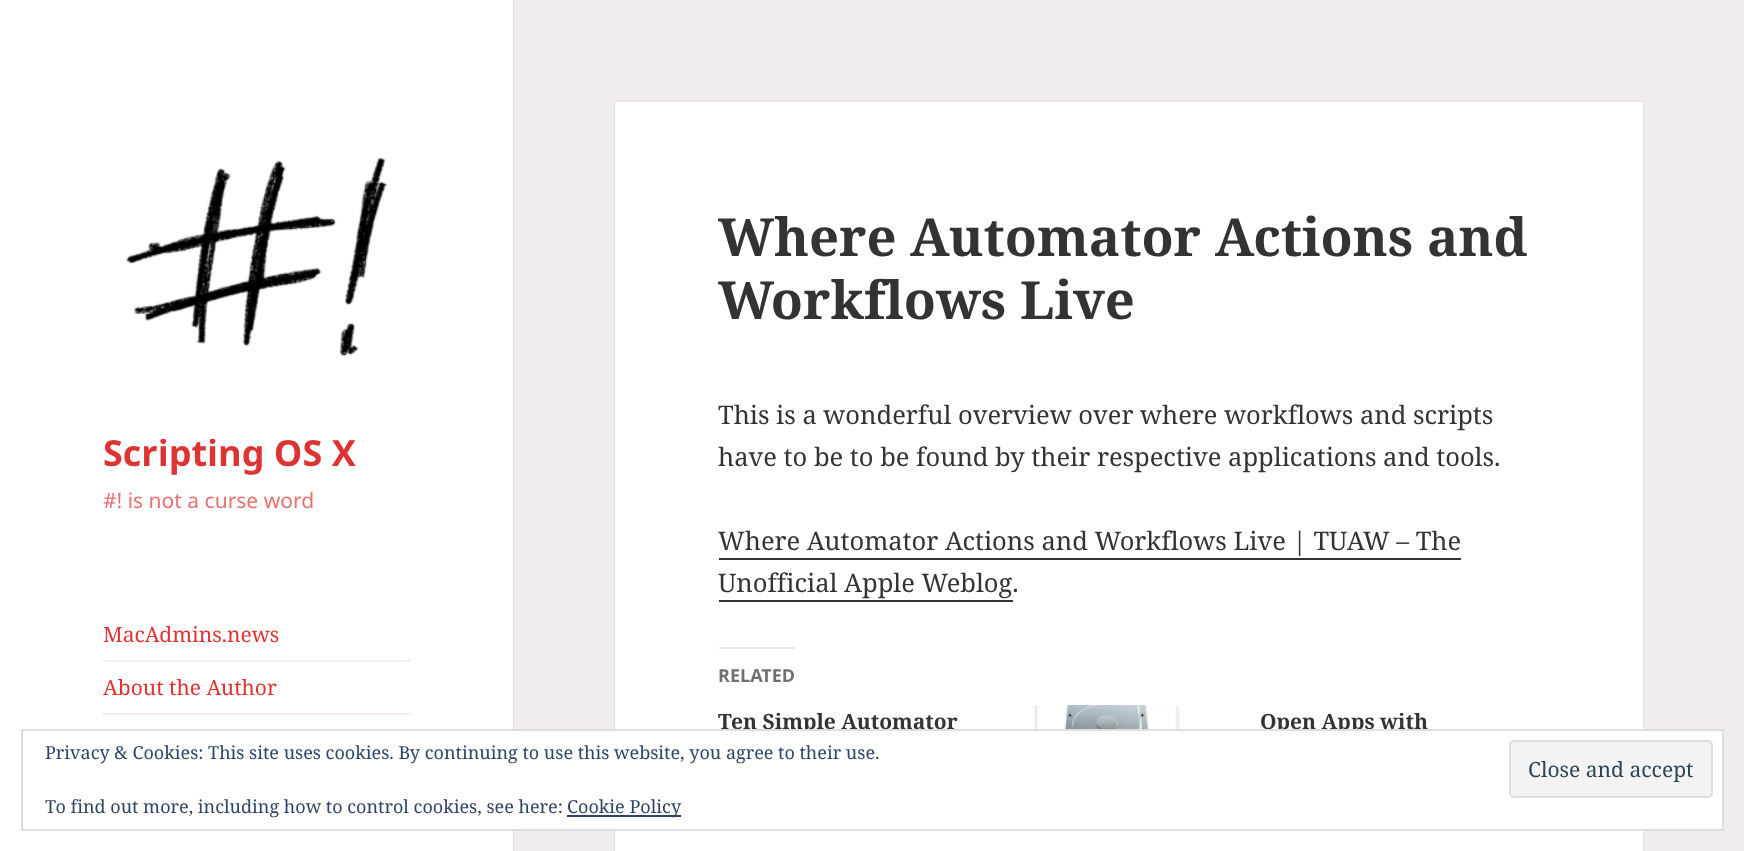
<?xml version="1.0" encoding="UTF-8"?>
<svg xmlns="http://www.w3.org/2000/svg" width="1744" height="851">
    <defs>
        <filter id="blur1" x="-50%" y="-200%" width="200%" height="500%"><feGaussianBlur stdDeviation="1"/></filter>
    </defs>
    <rect width="100%" height="100%" fill="#F2EDED"/>
    <rect x="0" y="0" width="513" height="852" fill="#000000" fill-opacity="0.15" filter="url(#blur1)"/>
    <rect x="0" y="0" width="513" height="851" fill="#FFFFFF"/>
    <image x="125" y="157" width="263" height="200" href="img_01.png"/>
    <text x="103" y="466" font-family="Noto Sans" font-size="36" font-weight="700" fill="#DD3333">Scripting OS X</text>
    <text x="103" y="508" font-family="Noto Sans" font-size="21" fill="#E77070">#! is not a curse word</text>
    <text x="103" y="642" font-family="Noto Serif" font-size="21" fill="#DD3333">MacAdmins.news</text>
    <rect x="102" y="660" width="309" height="2" fill="#FCEBEB"/>
    <text x="103" y="695" font-family="Noto Serif" font-size="21" fill="#DD3333">About the Author</text>
    <rect x="102" y="713" width="309" height="2" fill="#FCEBEB"/>
    <rect x="615" y="102" width="1028" height="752" fill="#000000" fill-opacity="0.15" filter="url(#blur1)"/>
    <rect x="615" y="102" width="1028" height="749" fill="#FFFFFF"/>
    <text font-family="Noto Serif" font-size="52.5" font-weight="700" fill="#333333">
        <tspan x="718" y="256">Where Automator Actions and</tspan>
        <tspan x="718" y="319">Workflows Live</tspan>
    </text>
    <text font-family="Noto Serif" font-size="25.5" fill="#333333">
        <tspan x="718" y="424">This is a wonderful overview over where workflows and scripts</tspan>
        <tspan x="718" y="466">have to be to be found by their respective applications and tools.</tspan>
    </text>
    <text x="718" y="550" font-family="Noto Serif" font-size="25.5" fill="#333333">Where Automator Actions and Workflows Live | TUAW – The</text>
    <rect x="719" y="558" width="742" height="2" fill="#333333"/>
    <text x="718" y="592" font-family="Noto Serif" font-size="25.5" fill="#333333">Unofficial Apple Weblog.</text>
    <rect x="719" y="600" width="294" height="2" fill="#333333"/>
    <rect x="719" y="647" width="76" height="2" fill="#E6E6E6"/>
    <text x="718" y="682" font-family="Noto Sans" font-size="18" font-weight="700" fill="#707070">RELATED</text>
    <text x="718" y="729" font-family="Noto Serif" font-size="21" font-weight="700" fill="#333333">Ten Simple Automator</text>
    <image x="1033" y="705" width="147" height="24" href="img_02.png"/>
    <text x="1260" y="729" font-family="Noto Serif" font-size="21" font-weight="700" fill="#333333">Open Apps with</text>
    <rect x="513" y="731" width="1209" height="98" fill="#FFFFFF"/>
    <rect x="22" y="730" width="1701" height="100" fill="none" stroke="#DEDEDE" stroke-width="2"/>
    <text x="45" y="759" font-family="Noto Serif" font-size="18" fill="#2E4467">Privacy &amp; Cookies: This site uses cookies. By continuing to use this website, you agree to their use.</text>
    <rect x="1510" y="741" width="202" height="56" rx="4" fill="#F3F3F3" stroke="#DEDEDE" stroke-width="2"/>
    <text x="1528" y="777" font-family="Noto Serif" font-size="21" fill="#2E4453">Close and accept</text>
    <text x="45" y="813" font-family="Noto Serif" font-size="18" fill="#2E4467">To find out more, including how to control cookies, see here:</text>
    <rect x="567" y="815" width="114" height="2" fill="#2E4467"/>
    <text x="567" y="813" font-family="Noto Serif" font-size="18" fill="#2E4467">Cookie Policy</text>
</svg>
